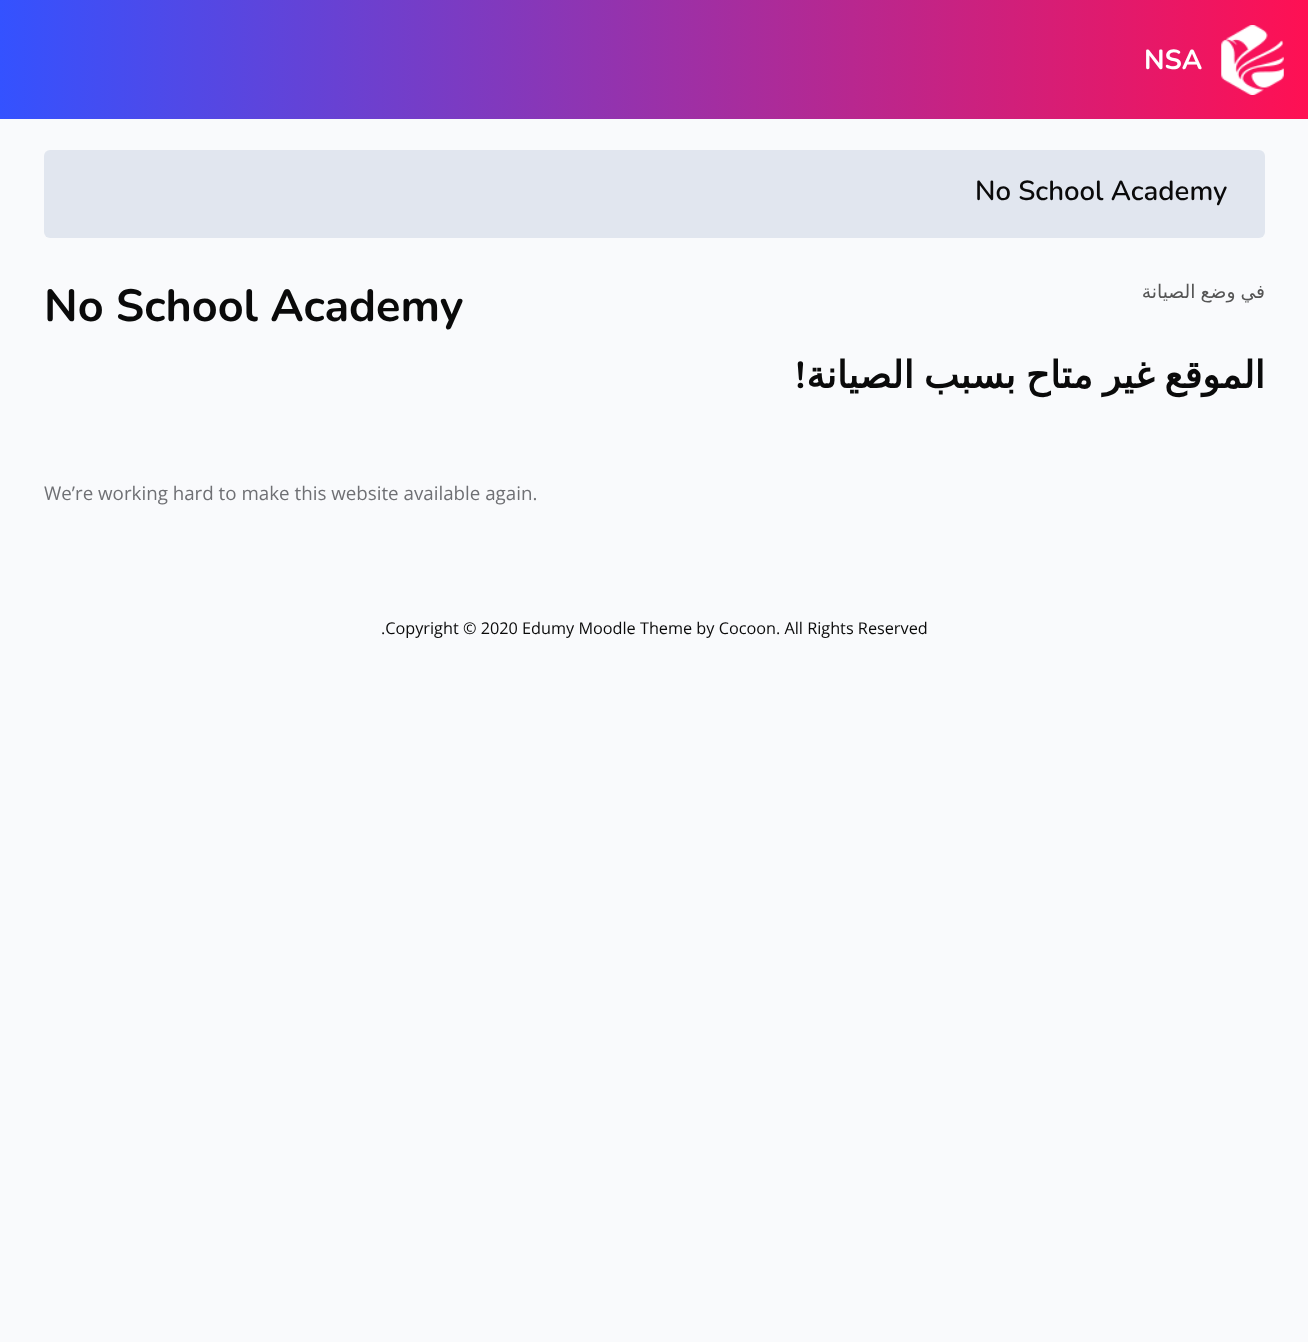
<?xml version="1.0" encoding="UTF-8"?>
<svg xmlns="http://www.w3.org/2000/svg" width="1308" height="1342">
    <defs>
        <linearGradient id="g1" gradientUnits="userSpaceOnUse" x1="0" y1="59" x2="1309" y2="59"><stop offset="0" stop-color="#3452FF"/><stop offset="1" stop-color="#FF1053"/></linearGradient>
    </defs>
    <rect width="100%" height="100%" fill="#F9FAFC"/>
    <rect x="0" y="0" width="1308" height="119" fill="url(#g1)"/>
    <text x="1144" y="69" font-family="Nunito" font-size="27.5" font-weight="700" fill="#FFFFFF">NSA</text>
    <image x="1221" y="25" width="63" height="70" href="img_01.png"/>
    <rect x="44" y="150" width="1221" height="88" rx="6" fill="#E1E6EF"/>
    <text x="975" y="200" font-family="Nunito" font-size="27.5" font-weight="600" fill="#0A0A0A">No School Academy</text>
    <text x="44" y="321" font-family="Nunito" font-size="45" font-weight="700" fill="#0A0A0A">No School Academy</text>
    <text x="1265" y="298" word-spacing="-1" font-family="DejaVu Sans" font-size="18.75" direction="rtl" fill="#555555">في وضع الصيانة</text>
    <text x="805" y="388" font-family="Nunito" font-size="37.5" font-weight="700" direction="rtl" fill="#0A0A0A">!</text>
    <text x="1265" y="388" word-spacing="-2" font-family="DejaVu Sans" font-size="37.5" font-weight="700" direction="rtl" fill="#0A0A0A">الموقع غير متاح بسبب الصيانة</text>
    <text x="44" y="500" font-family="Open Sans" font-size="18.75" fill="#6F7074">We’re working hard to make this website available again.</text>
    <text x="381" y="634" font-family="Open Sans" font-size="16.25" fill="#0A0A0A">.Copyright © 2020 Edumy Moodle Theme by Cocoon. All Rights Reserved</text>
</svg>
